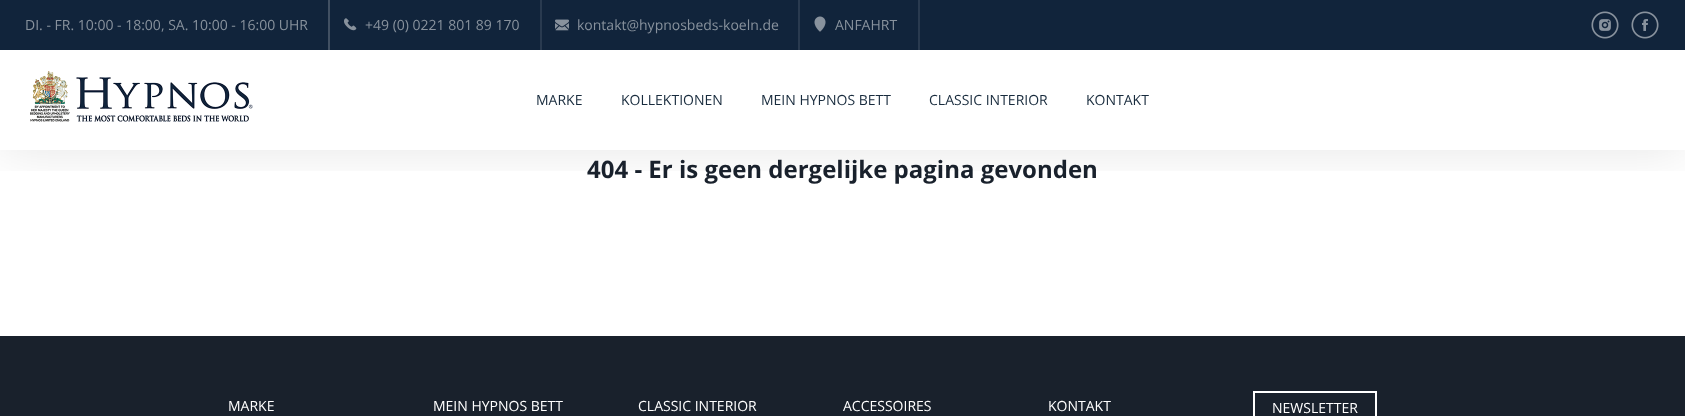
<?xml version="1.0" encoding="UTF-8"?>
<svg xmlns="http://www.w3.org/2000/svg" width="1685" height="416">
    <defs>
        <clipPath id="clip1"><rect x="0" y="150" width="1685" height="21"/></clipPath>
        <filter id="blur1" x="-50%" y="-200%" width="200%" height="500%"><feGaussianBlur stdDeviation="25"/></filter>
    </defs>
    <rect width="100%" height="100%" fill="#FFFFFF"/>
    <g clip-path="url(#clip1)">
        <rect x="0" y="50" width="1685" height="100" fill="#000000" fill-opacity="0.1" filter="url(#blur1)"/>
    </g>
    <rect x="0" y="0" width="1685" height="50" fill="#11243B"/>
    <rect x="328" y="0" width="2" height="50" fill="#415062"/>
    <text x="25" y="30" font-family="Open Sans" font-size="14" fill="#88929D">DI. - FR. 10:00 - 18:00, SA. 10:00 - 16:00 UHR</text>
    <image x="344" y="18" width="13" height="13" href="img_01.png"/>
    <rect x="540" y="0" width="2" height="50" fill="#293A4F"/>
    <text x="365" y="30" font-family="Open Sans" font-size="14" fill="#88929D">+49 (0) 0221 801 89 170</text>
    <image x="555" y="19" width="14" height="12" href="img_02.png"/>
    <rect x="798" y="0" width="2" height="50" fill="#293A4F"/>
    <text x="577" y="30" font-family="Open Sans" font-size="14" fill="#88929D">kontakt@hypnosbeds-koeln.de</text>
    <image x="814" y="16" width="12" height="16" href="img_03.png"/>
    <rect x="918" y="0" width="2" height="50" fill="#293A4F"/>
    <text x="835" y="30" font-family="Open Sans" font-size="14" fill="#88929D">ANFAHRT</text>
    <image x="1591" y="11" width="28" height="28" href="img_04.png"/>
    <image x="1631" y="11" width="28" height="28" href="img_05.png"/>
    <image x="30" y="71" width="223" height="51" href="img_06.png"/>
    <text x="536" y="105" font-family="Open Sans" font-size="14" fill="#182B3D">MARKE</text>
    <text x="621" y="105" font-family="Open Sans" font-size="14" fill="#182B3D">KOLLEKTIONEN</text>
    <text x="761" y="105" font-family="Open Sans" font-size="14" fill="#182B3D">MEIN HYPNOS BETT</text>
    <text x="929" y="105" font-family="Open Sans" font-size="14" fill="#182B3D">CLASSIC INTERIOR</text>
    <text x="1086" y="105" font-family="Open Sans" font-size="14" fill="#182B3D">KONTAKT</text>
    <text x="587" y="178" font-family="Open Sans" font-size="24" font-weight="700" fill="#19212C">404 - Er is geen dergelijke pagina gevonden</text>
    <rect x="0" y="336" width="1685" height="80" fill="#19212C"/>
    <text x="228" y="411" font-family="Open Sans" font-size="14" fill="#FFFFFF">MARKE</text>
    <text x="433" y="411" font-family="Open Sans" font-size="14" fill="#FFFFFF">MEIN HYPNOS BETT</text>
    <text x="638" y="411" font-family="Open Sans" font-size="14" fill="#FFFFFF">CLASSIC INTERIOR</text>
    <text x="843" y="411" font-family="Open Sans" font-size="14" fill="#FFFFFF">ACCESSOIRES</text>
    <text x="1048" y="411" font-family="Open Sans" font-size="14" fill="#FFFFFF">KONTAKT</text>
    <rect x="1254" y="392" width="122" height="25" fill="none" stroke="#FFFFFF" stroke-width="2"/>
    <text x="1272" y="413" font-family="Open Sans" font-size="14" fill="#FFFFFF">NEWSLETTER</text>
</svg>
